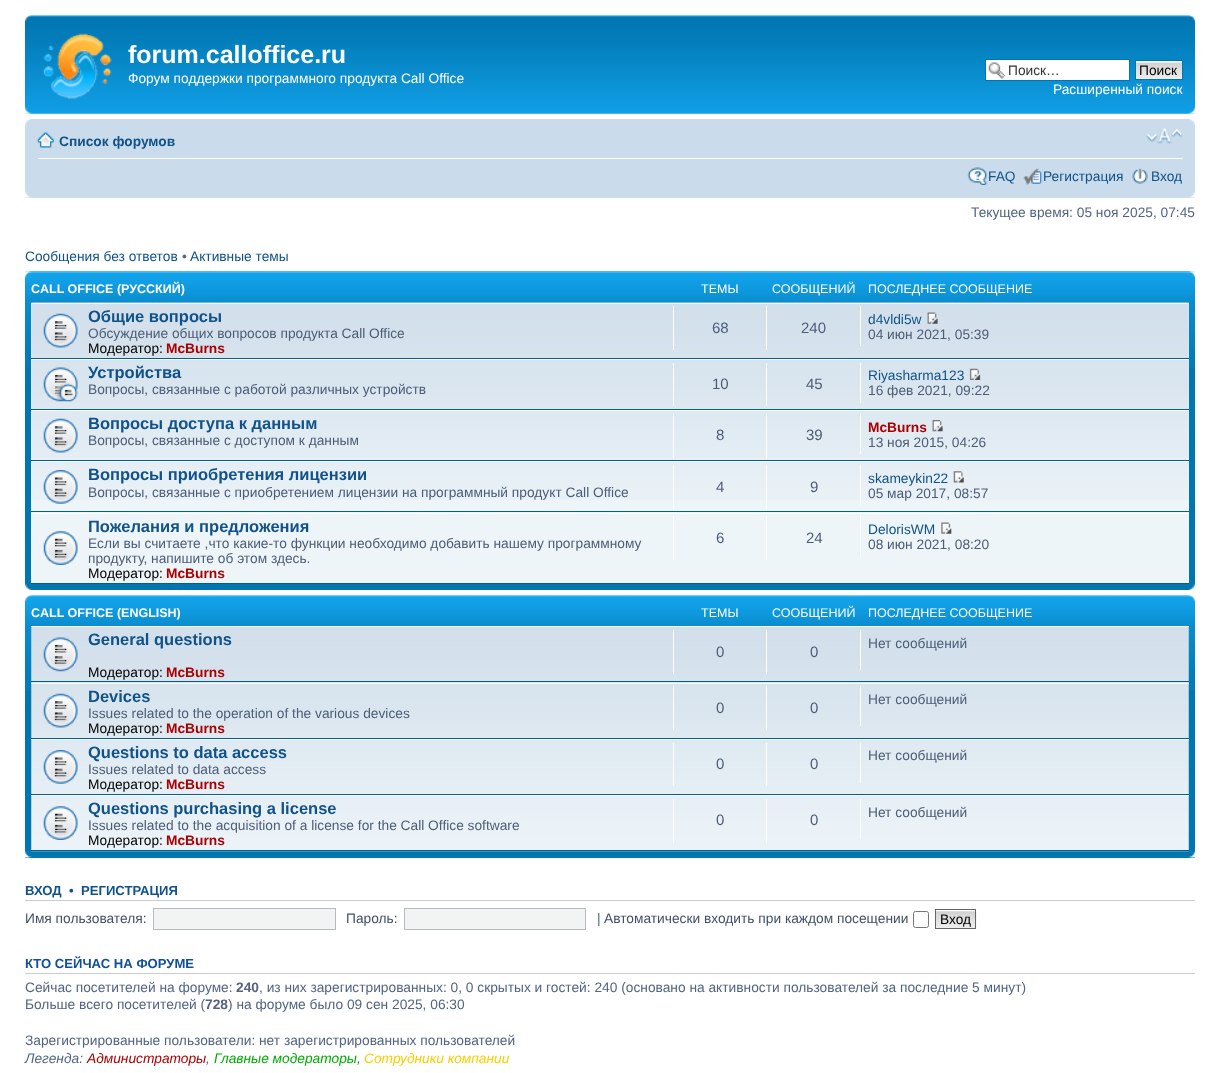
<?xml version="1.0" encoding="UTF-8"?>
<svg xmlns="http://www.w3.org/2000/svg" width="1220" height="1073">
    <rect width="100%" height="100%" fill="#FFFFFF"/>
    <image x="25" y="15" width="1170" height="99" href="img_01.png"/>
    <image x="25" y="15" width="7" height="7" href="img_02.png"/>
    <image x="1188" y="15" width="7" height="7" href="img_03.png"/>
    <image x="43" y="33" width="69" height="66" href="img_04.png"/>
    <text x="128" y="63" font-family="Liberation Sans" font-size="25" font-weight="700" fill="#FFFFFF">forum.calloffice.ru</text>
    <text x="128" y="83" font-family="Liberation Sans" font-size="13.75" fill="#FFFFFF">Форум поддержки программного продукта Call Office</text>
    <rect x="986" y="60" width="143" height="20" fill="#FFFFFF"/>
    <image x="988" y="62" width="18" height="17" href="img_05.png"/>
    <rect x="985.5" y="59.5" width="144" height="21" fill="none" stroke="#0075B0"/>
    <text x="1008" y="75" font-family="Liberation Sans" font-size="13.75" fill="#333333">Поиск…</text>
    <rect x="1136" y="61" width="46" height="1" fill="#FAFAFA"/>
    <image x="1136" y="62" width="46" height="17" href="img_06.png"/>
    <rect x="1135.5" y="60.5" width="47" height="19" fill="none" stroke="#0075B0"/>
    <text x="1139" y="75" font-family="Liberation Sans" font-size="13.75" fill="#000000">Поиск</text>
    <text x="1053" y="94" font-family="Liberation Sans" font-size="13.75" fill="#FFFFFF">Расширенный поиск</text>
    <image x="25" y="107" width="7" height="7" href="img_07.png"/>
    <image x="1188" y="107" width="7" height="7" href="img_08.png"/>
    <rect x="25" y="119" width="1170" height="79" fill="#CADCEB"/>
    <image x="25" y="119" width="7" height="6" href="img_09.png"/>
    <image x="1189" y="119" width="6" height="6" href="img_10.png"/>
    <rect x="38" y="158" width="1145" height="1" fill="#FFFFFF"/>
    <image x="37" y="132" width="17" height="16" href="img_11.png"/>
    <text x="59" y="146" font-family="Liberation Sans" font-size="13.75" font-weight="700" fill="#105289">Список форумов</text>
    <image x="1146" y="128" width="37" height="16" href="img_12.png"/>
    <image x="967" y="167" width="21" height="18" href="img_13.png"/>
    <text x="988" y="181" font-family="Liberation Sans" font-size="13.75" fill="#105289">FAQ</text>
    <image x="1023" y="168" width="19" height="17" href="img_14.png"/>
    <text x="1043" y="181" font-family="Liberation Sans" font-size="13.75" fill="#105289">Регистрация</text>
    <image x="1132" y="168" width="16" height="16" href="img_15.png"/>
    <text x="1151" y="181" font-family="Liberation Sans" font-size="13.75" fill="#105289">Вход</text>
    <image x="25" y="191" width="6" height="7" href="img_16.png"/>
    <image x="1189" y="191" width="6" height="7" href="img_17.png"/>
    <text x="971" y="217" font-family="Liberation Sans" font-size="13.75" fill="#536482">Текущее время: 05 ноя 2025, 07:45</text>
    <text x="25" y="261" font-family="Liberation Sans" font-size="13.75" fill="#105289">Сообщения без ответов</text>
    <text x="182" y="261" font-family="Liberation Sans" font-size="13.75" fill="#536482">•</text>
    <text x="190" y="261" font-family="Liberation Sans" font-size="13.75" fill="#105289">Активные темы</text>
    <rect x="25" y="271" width="1170" height="319" fill="#0076B1"/>
    <image x="25" y="271" width="1170" height="97" href="img_18.png"/>
    <image x="25" y="271" width="7" height="7" href="img_19.png"/>
    <image x="1188" y="271" width="7" height="7" href="img_20.png"/>
    <text x="31" y="293" font-family="Liberation Sans" font-size="12.5" font-weight="700" fill="#FFFFFF">CALL OFFICE (РУССКИЙ)</text>
    <text x="701" y="293" font-family="Liberation Sans" font-size="12.5" fill="#FFFFFF">ТЕМЫ</text>
    <text x="772" y="293" font-family="Liberation Sans" font-size="12.5" fill="#FFFFFF">СООБЩЕНИЙ</text>
    <text x="868" y="293" font-family="Liberation Sans" font-size="12.5" fill="#FFFFFF">ПОСЛЕДНЕЕ СООБЩЕНИЕ</text>
    <rect x="31" y="304" width="1158" height="279" fill="#EEF5F9"/>
    <image x="31" y="302" width="1158" height="198" href="img_21.png"/>
    <rect x="31" y="303" width="1158" height="1" fill="#FFFFFF"/>
    <rect x="31" y="358" width="1158" height="1" fill="#00608F"/>
    <image x="43" y="313" width="35" height="35" href="img_22.png"/>
    <text x="88" y="322" font-family="Liberation Sans" font-size="16.5" font-weight="700" fill="#105289">Общие вопросы</text>
    <text x="88" y="338" font-family="Liberation Sans" font-size="13.75" fill="#4C5D77">Обсуждение общих вопросов продукта Call Office</text>
    <text x="88" y="353" font-family="Liberation Sans" font-size="13.75" fill="#000000">Модератор:</text>
    <text x="166" y="353" font-family="Liberation Sans" font-size="13.75" font-weight="700" fill="#AA0000">McBurns</text>
    <rect x="673" y="306" width="1" height="44" fill="#FFFFFF"/>
    <text x="712" y="333" font-family="Liberation Sans" font-size="15" fill="#4C5D77">68</text>
    <rect x="766" y="306" width="1" height="44" fill="#FFFFFF"/>
    <text x="801" y="333" font-family="Liberation Sans" font-size="15" fill="#4C5D77">240</text>
    <rect x="860" y="306" width="1" height="40" fill="#FFFFFF"/>
    <text x="868" y="324" font-family="Liberation Sans" font-size="13.75" fill="#105289">d4vldi5w</text>
    <image x="927" y="312" width="11" height="12" href="img_23.png"/>
    <text x="868" y="339" font-family="Liberation Sans" font-size="13.75" fill="#4C5D77">04 июн 2021, 05:39</text>
    <rect x="31" y="359" width="1158" height="1" fill="#FFFFFF"/>
    <rect x="31" y="409" width="1158" height="1" fill="#00608F"/>
    <image x="43" y="367" width="35" height="35" href="img_24.png"/>
    <text x="88" y="378" font-family="Liberation Sans" font-size="16.5" font-weight="700" fill="#105289">Устройства</text>
    <text x="88" y="394" font-family="Liberation Sans" font-size="13.75" fill="#4C5D77">Вопросы, связанные с работой различных устройств</text>
    <rect x="673" y="363" width="1" height="43" fill="#FFFFFF"/>
    <text x="712" y="389" font-family="Liberation Sans" font-size="15" fill="#4C5D77">10</text>
    <rect x="766" y="363" width="1" height="43" fill="#FFFFFF"/>
    <text x="806" y="389" font-family="Liberation Sans" font-size="15" fill="#4C5D77">45</text>
    <rect x="860" y="363" width="1" height="40" fill="#FFFFFF"/>
    <text x="868" y="380" font-family="Liberation Sans" font-size="13.75" fill="#105289">Riyasharma123</text>
    <image x="969" y="368" width="12" height="12" href="img_25.png"/>
    <text x="868" y="395" font-family="Liberation Sans" font-size="13.75" fill="#4C5D77">16 фев 2021, 09:22</text>
    <rect x="31" y="410" width="1158" height="1" fill="#FFFFFF"/>
    <rect x="31" y="460" width="1158" height="1" fill="#00608F"/>
    <image x="43" y="418" width="35" height="35" href="img_26.png"/>
    <text x="88" y="429" font-family="Liberation Sans" font-size="16.5" font-weight="700" fill="#105289">Вопросы доступа к данным</text>
    <text x="88" y="445" font-family="Liberation Sans" font-size="13.75" fill="#4C5D77">Вопросы, связанные с доступом к данным</text>
    <rect x="673" y="414" width="1" height="44" fill="#FFFFFF"/>
    <text x="716" y="440" font-family="Liberation Sans" font-size="15" fill="#4C5D77">8</text>
    <rect x="766" y="414" width="1" height="44" fill="#FFFFFF"/>
    <text x="806" y="440" font-family="Liberation Sans" font-size="15" fill="#4C5D77">39</text>
    <rect x="860" y="414" width="1" height="40" fill="#FFFFFF"/>
    <text x="868" y="432" font-family="Liberation Sans" font-size="13.75" font-weight="700" fill="#AA0000">McBurns</text>
    <image x="932" y="420" width="11" height="12" href="img_27.png"/>
    <text x="868" y="447" font-family="Liberation Sans" font-size="13.75" fill="#4C5D77">13 ноя 2015, 04:26</text>
    <rect x="31" y="461" width="1158" height="1" fill="#FFFFFF"/>
    <rect x="31" y="511" width="1158" height="1" fill="#00608F"/>
    <image x="43" y="470" width="35" height="34" href="img_28.png"/>
    <text x="88" y="480" font-family="Liberation Sans" font-size="16.5" font-weight="700" fill="#105289">Вопросы приобретения лицензии</text>
    <text x="88" y="497" font-family="Liberation Sans" font-size="13.75" fill="#4C5D77">Вопросы, связанные с приобретением лицензии на программный продукт Call Office</text>
    <rect x="673" y="465" width="1" height="44" fill="#FFFFFF"/>
    <text x="716" y="492" font-family="Liberation Sans" font-size="15" fill="#4C5D77">4</text>
    <rect x="766" y="465" width="1" height="44" fill="#FFFFFF"/>
    <text x="810" y="492" font-family="Liberation Sans" font-size="15" fill="#4C5D77">9</text>
    <rect x="860" y="465" width="1" height="40" fill="#FFFFFF"/>
    <text x="868" y="483" font-family="Liberation Sans" font-size="13.75" fill="#105289">skameykin22</text>
    <image x="953" y="471" width="11" height="12" href="img_29.png"/>
    <text x="868" y="498" font-family="Liberation Sans" font-size="13.75" fill="#4C5D77">05 мар 2017, 08:57</text>
    <rect x="31" y="513" width="1158" height="1" fill="#FFFFFF"/>
    <rect x="31" y="583" width="1158" height="1" fill="#00608F"/>
    <image x="43" y="531" width="35" height="34" href="img_30.png"/>
    <text x="88" y="532" font-family="Liberation Sans" font-size="16.5" font-weight="700" fill="#105289">Пожелания и предложения</text>
    <text font-family="Liberation Sans" font-size="13.75" fill="#4C5D77">
        <tspan x="88" y="548">Если вы считаете ,что какие-то функции необходимо добавить нашему программному</tspan>
        <tspan x="88" y="563">продукту, напишите об этом здесь.</tspan>
    </text>
    <text x="88" y="578" font-family="Liberation Sans" font-size="13.75" fill="#000000">Модератор:</text>
    <text x="166" y="578" font-family="Liberation Sans" font-size="13.75" font-weight="700" fill="#AA0000">McBurns</text>
    <rect x="673" y="516" width="1" height="44" fill="#FFFFFF"/>
    <text x="716" y="543" font-family="Liberation Sans" font-size="15" fill="#4C5D77">6</text>
    <rect x="766" y="516" width="1" height="44" fill="#FFFFFF"/>
    <text x="806" y="543" font-family="Liberation Sans" font-size="15" fill="#4C5D77">24</text>
    <rect x="860" y="516" width="1" height="40" fill="#FFFFFF"/>
    <text x="868" y="534" font-family="Liberation Sans" font-size="13.75" fill="#105289">DelorisWM</text>
    <image x="941" y="522" width="11" height="12" href="img_31.png"/>
    <text x="868" y="549" font-family="Liberation Sans" font-size="13.75" fill="#4C5D77">08 июн 2021, 08:20</text>
    <image x="25" y="583" width="7" height="7" href="img_32.png"/>
    <image x="1188" y="583" width="7" height="7" href="img_33.png"/>
    <rect x="25" y="691" width="1170" height="167" fill="#0076B1"/>
    <image x="25" y="595" width="1170" height="96" href="img_34.png"/>
    <image x="25" y="595" width="7" height="7" href="img_35.png"/>
    <image x="1188" y="595" width="7" height="7" href="img_36.png"/>
    <text x="31" y="617" font-family="Liberation Sans" font-size="12.5" font-weight="700" fill="#FFFFFF">CALL OFFICE (ENGLISH)</text>
    <text x="701" y="617" font-family="Liberation Sans" font-size="12.5" fill="#FFFFFF">ТЕМЫ</text>
    <text x="772" y="617" font-family="Liberation Sans" font-size="12.5" fill="#FFFFFF">СООБЩЕНИЙ</text>
    <text x="868" y="617" font-family="Liberation Sans" font-size="12.5" fill="#FFFFFF">ПОСЛЕДНЕЕ СООБЩЕНИЕ</text>
    <image x="31" y="627" width="1158" height="225" href="img_37.png"/>
    <rect x="31" y="626" width="1158" height="1" fill="#FFFFFF"/>
    <rect x="31" y="681" width="1158" height="1" fill="#00608F"/>
    <image x="43" y="637" width="35" height="35" href="img_38.png"/>
    <text x="88" y="645" font-family="Liberation Sans" font-size="16.5" font-weight="700" fill="#105289">General questions</text>
    <text x="88" y="677" font-family="Liberation Sans" font-size="13.75" fill="#000000">Модератор:</text>
    <text x="166" y="677" font-family="Liberation Sans" font-size="13.75" font-weight="700" fill="#AA0000">McBurns</text>
    <rect x="673" y="630" width="1" height="44" fill="#FFFFFF"/>
    <text x="716" y="657" font-family="Liberation Sans" font-size="15" fill="#4C5D77">0</text>
    <rect x="766" y="630" width="1" height="44" fill="#FFFFFF"/>
    <text x="810" y="657" font-family="Liberation Sans" font-size="15" fill="#4C5D77">0</text>
    <rect x="860" y="630" width="1" height="40" fill="#FFFFFF"/>
    <text x="868" y="648" font-family="Liberation Sans" font-size="13.75" fill="#4C5D77">Нет сообщений</text>
    <rect x="31" y="683" width="1158" height="1" fill="#FFFFFF"/>
    <rect x="31" y="738" width="1158" height="1" fill="#00608F"/>
    <image x="43" y="693" width="35" height="35" href="img_39.png"/>
    <text x="88" y="702" font-family="Liberation Sans" font-size="16.5" font-weight="700" fill="#105289">Devices</text>
    <text x="88" y="718" font-family="Liberation Sans" font-size="13.75" fill="#4C5D77">Issues related to the operation of the various devices</text>
    <text x="88" y="733" font-family="Liberation Sans" font-size="13.75" fill="#000000">Модератор:</text>
    <text x="166" y="733" font-family="Liberation Sans" font-size="13.75" font-weight="700" fill="#AA0000">McBurns</text>
    <rect x="673" y="686" width="1" height="44" fill="#FFFFFF"/>
    <text x="716" y="713" font-family="Liberation Sans" font-size="15" fill="#4C5D77">0</text>
    <rect x="766" y="686" width="1" height="44" fill="#FFFFFF"/>
    <text x="810" y="713" font-family="Liberation Sans" font-size="15" fill="#4C5D77">0</text>
    <rect x="860" y="686" width="1" height="40" fill="#FFFFFF"/>
    <text x="868" y="704" font-family="Liberation Sans" font-size="13.75" fill="#4C5D77">Нет сообщений</text>
    <rect x="31" y="739" width="1158" height="1" fill="#FFFFFF"/>
    <rect x="31" y="794" width="1158" height="1" fill="#00608F"/>
    <image x="43" y="750" width="35" height="34" href="img_40.png"/>
    <text x="88" y="758" font-family="Liberation Sans" font-size="16.5" font-weight="700" fill="#105289">Questions to data access</text>
    <text x="88" y="774" font-family="Liberation Sans" font-size="13.75" fill="#4C5D77">Issues related to data access</text>
    <text x="88" y="789" font-family="Liberation Sans" font-size="13.75" fill="#000000">Модератор:</text>
    <text x="166" y="789" font-family="Liberation Sans" font-size="13.75" font-weight="700" fill="#AA0000">McBurns</text>
    <rect x="673" y="743" width="1" height="43" fill="#FFFFFF"/>
    <text x="716" y="769" font-family="Liberation Sans" font-size="15" fill="#4C5D77">0</text>
    <rect x="766" y="743" width="1" height="43" fill="#FFFFFF"/>
    <text x="810" y="769" font-family="Liberation Sans" font-size="15" fill="#4C5D77">0</text>
    <rect x="860" y="743" width="1" height="40" fill="#FFFFFF"/>
    <text x="868" y="760" font-family="Liberation Sans" font-size="13.75" fill="#4C5D77">Нет сообщений</text>
    <rect x="31" y="795" width="1158" height="1" fill="#FFFFFF"/>
    <rect x="31" y="850" width="1158" height="1" fill="#00608F"/>
    <image x="43" y="806" width="35" height="34" href="img_41.png"/>
    <text x="88" y="814" font-family="Liberation Sans" font-size="16.5" font-weight="700" fill="#105289">Questions purchasing a license</text>
    <text x="88" y="830" font-family="Liberation Sans" font-size="13.75" fill="#4C5D77">Issues related to the acquisition of a license for the Call Office software</text>
    <text x="88" y="845" font-family="Liberation Sans" font-size="13.75" fill="#000000">Модератор:</text>
    <text x="166" y="845" font-family="Liberation Sans" font-size="13.75" font-weight="700" fill="#AA0000">McBurns</text>
    <rect x="673" y="799" width="1" height="44" fill="#FFFFFF"/>
    <text x="716" y="825" font-family="Liberation Sans" font-size="15" fill="#4C5D77">0</text>
    <rect x="766" y="799" width="1" height="44" fill="#FFFFFF"/>
    <text x="810" y="825" font-family="Liberation Sans" font-size="15" fill="#4C5D77">0</text>
    <rect x="860" y="799" width="1" height="40" fill="#FFFFFF"/>
    <text x="868" y="817" font-family="Liberation Sans" font-size="13.75" fill="#4C5D77">Нет сообщений</text>
    <image x="25" y="851" width="7" height="7" href="img_42.png"/>
    <image x="1188" y="851" width="7" height="7" href="img_43.png"/>
    <rect x="25" y="900" width="1170" height="1" fill="#CCCCCC"/>
    <text x="25" y="895" font-family="Liberation Sans" font-size="13.1" font-weight="700" fill="#105289">ВХОД</text>
    <text x="69" y="895" font-family="Liberation Sans" font-size="13.1" font-weight="700" fill="#115098">•</text>
    <text x="81" y="895" font-family="Liberation Sans" font-size="13.1" font-weight="700" fill="#105289">РЕГИСТРАЦИЯ</text>
    <text x="25" y="923" font-family="Liberation Sans" font-size="13.75" fill="#425067">Имя пользователя:</text>
    <rect x="153.5" y="908.5" width="182" height="21" fill="#F2F3F3" stroke="#B4BAC0"/>
    <text x="346" y="923" font-family="Liberation Sans" font-size="13.75" fill="#425067">Пароль:</text>
    <rect x="404.5" y="908.5" width="181" height="21" fill="#F2F3F3" stroke="#B4BAC0"/>
    <text x="597" y="923" font-family="Liberation Sans" font-size="13.75" fill="#536482">|</text>
    <text x="604" y="923" font-family="Liberation Sans" font-size="13.75" fill="#425067">Автоматически входить при каждом посещении</text>
    <rect x="913.5" y="911.5" width="15" height="16" rx="2" fill="none" stroke="#767676"/>
    <image x="936" y="910" width="41" height="19" href="img_44.png"/>
    <rect x="935.5" y="909.5" width="40" height="19" fill="none" stroke="#666666"/>
    <text x="940" y="924" font-family="Liberation Sans" font-size="13.75" fill="#000000">Вход</text>
    <rect x="25" y="973" width="1170" height="1" fill="#CCCCCC"/>
    <text x="25" y="968" font-family="Liberation Sans" font-size="13.1" font-weight="700" fill="#115098">КТО СЕЙЧАС НА ФОРУМЕ</text>
    <text x="25" y="992" font-family="Liberation Sans" font-size="13.75" fill="#536482">Сейчас посетителей на форуме:</text>
    <text x="236" y="992" font-family="Liberation Sans" font-size="13.75" font-weight="700" fill="#536482">240</text>
    <text x="259" y="992" font-family="Liberation Sans" font-size="13.75" fill="#536482">, из них зарегистрированных: 0, 0 скрытых и гостей: 240 (основано на активности пользователей за последние 5 минут)</text>
    <text x="25" y="1009" font-family="Liberation Sans" font-size="13.75" fill="#536482">Больше всего посетителей (</text>
    <text x="205" y="1009" font-family="Liberation Sans" font-size="13.75" font-weight="700" fill="#536482">728</text>
    <text x="228" y="1009" font-family="Liberation Sans" font-size="13.75" fill="#536482">) на форуме было 09 сен 2025, 06:30</text>
    <text x="25" y="1045" font-family="Liberation Sans" font-size="13.75" fill="#536482">Зарегистрированные пользователи: нет зарегистрированных пользователей</text>
    <text x="25" y="1063" font-family="Liberation Sans" font-size="13.75" font-style="italic" fill="#536482">Легенда:</text>
    <text x="87" y="1063" font-family="Liberation Sans" font-size="13.75" font-style="italic" fill="#AA0000">Администраторы</text>
    <text x="206" y="1063" font-family="Liberation Sans" font-size="13.75" font-style="italic" fill="#536482">,</text>
    <text x="214" y="1063" font-family="Liberation Sans" font-size="13.75" font-style="italic" fill="#00AA00">Главные модераторы</text>
    <text x="357" y="1063" font-family="Liberation Sans" font-size="13.75" font-style="italic" fill="#536482">,</text>
    <text x="364" y="1063" font-family="Liberation Sans" font-size="13.75" font-style="italic" fill="#FFCC00">Сотрудники компании</text>
</svg>
